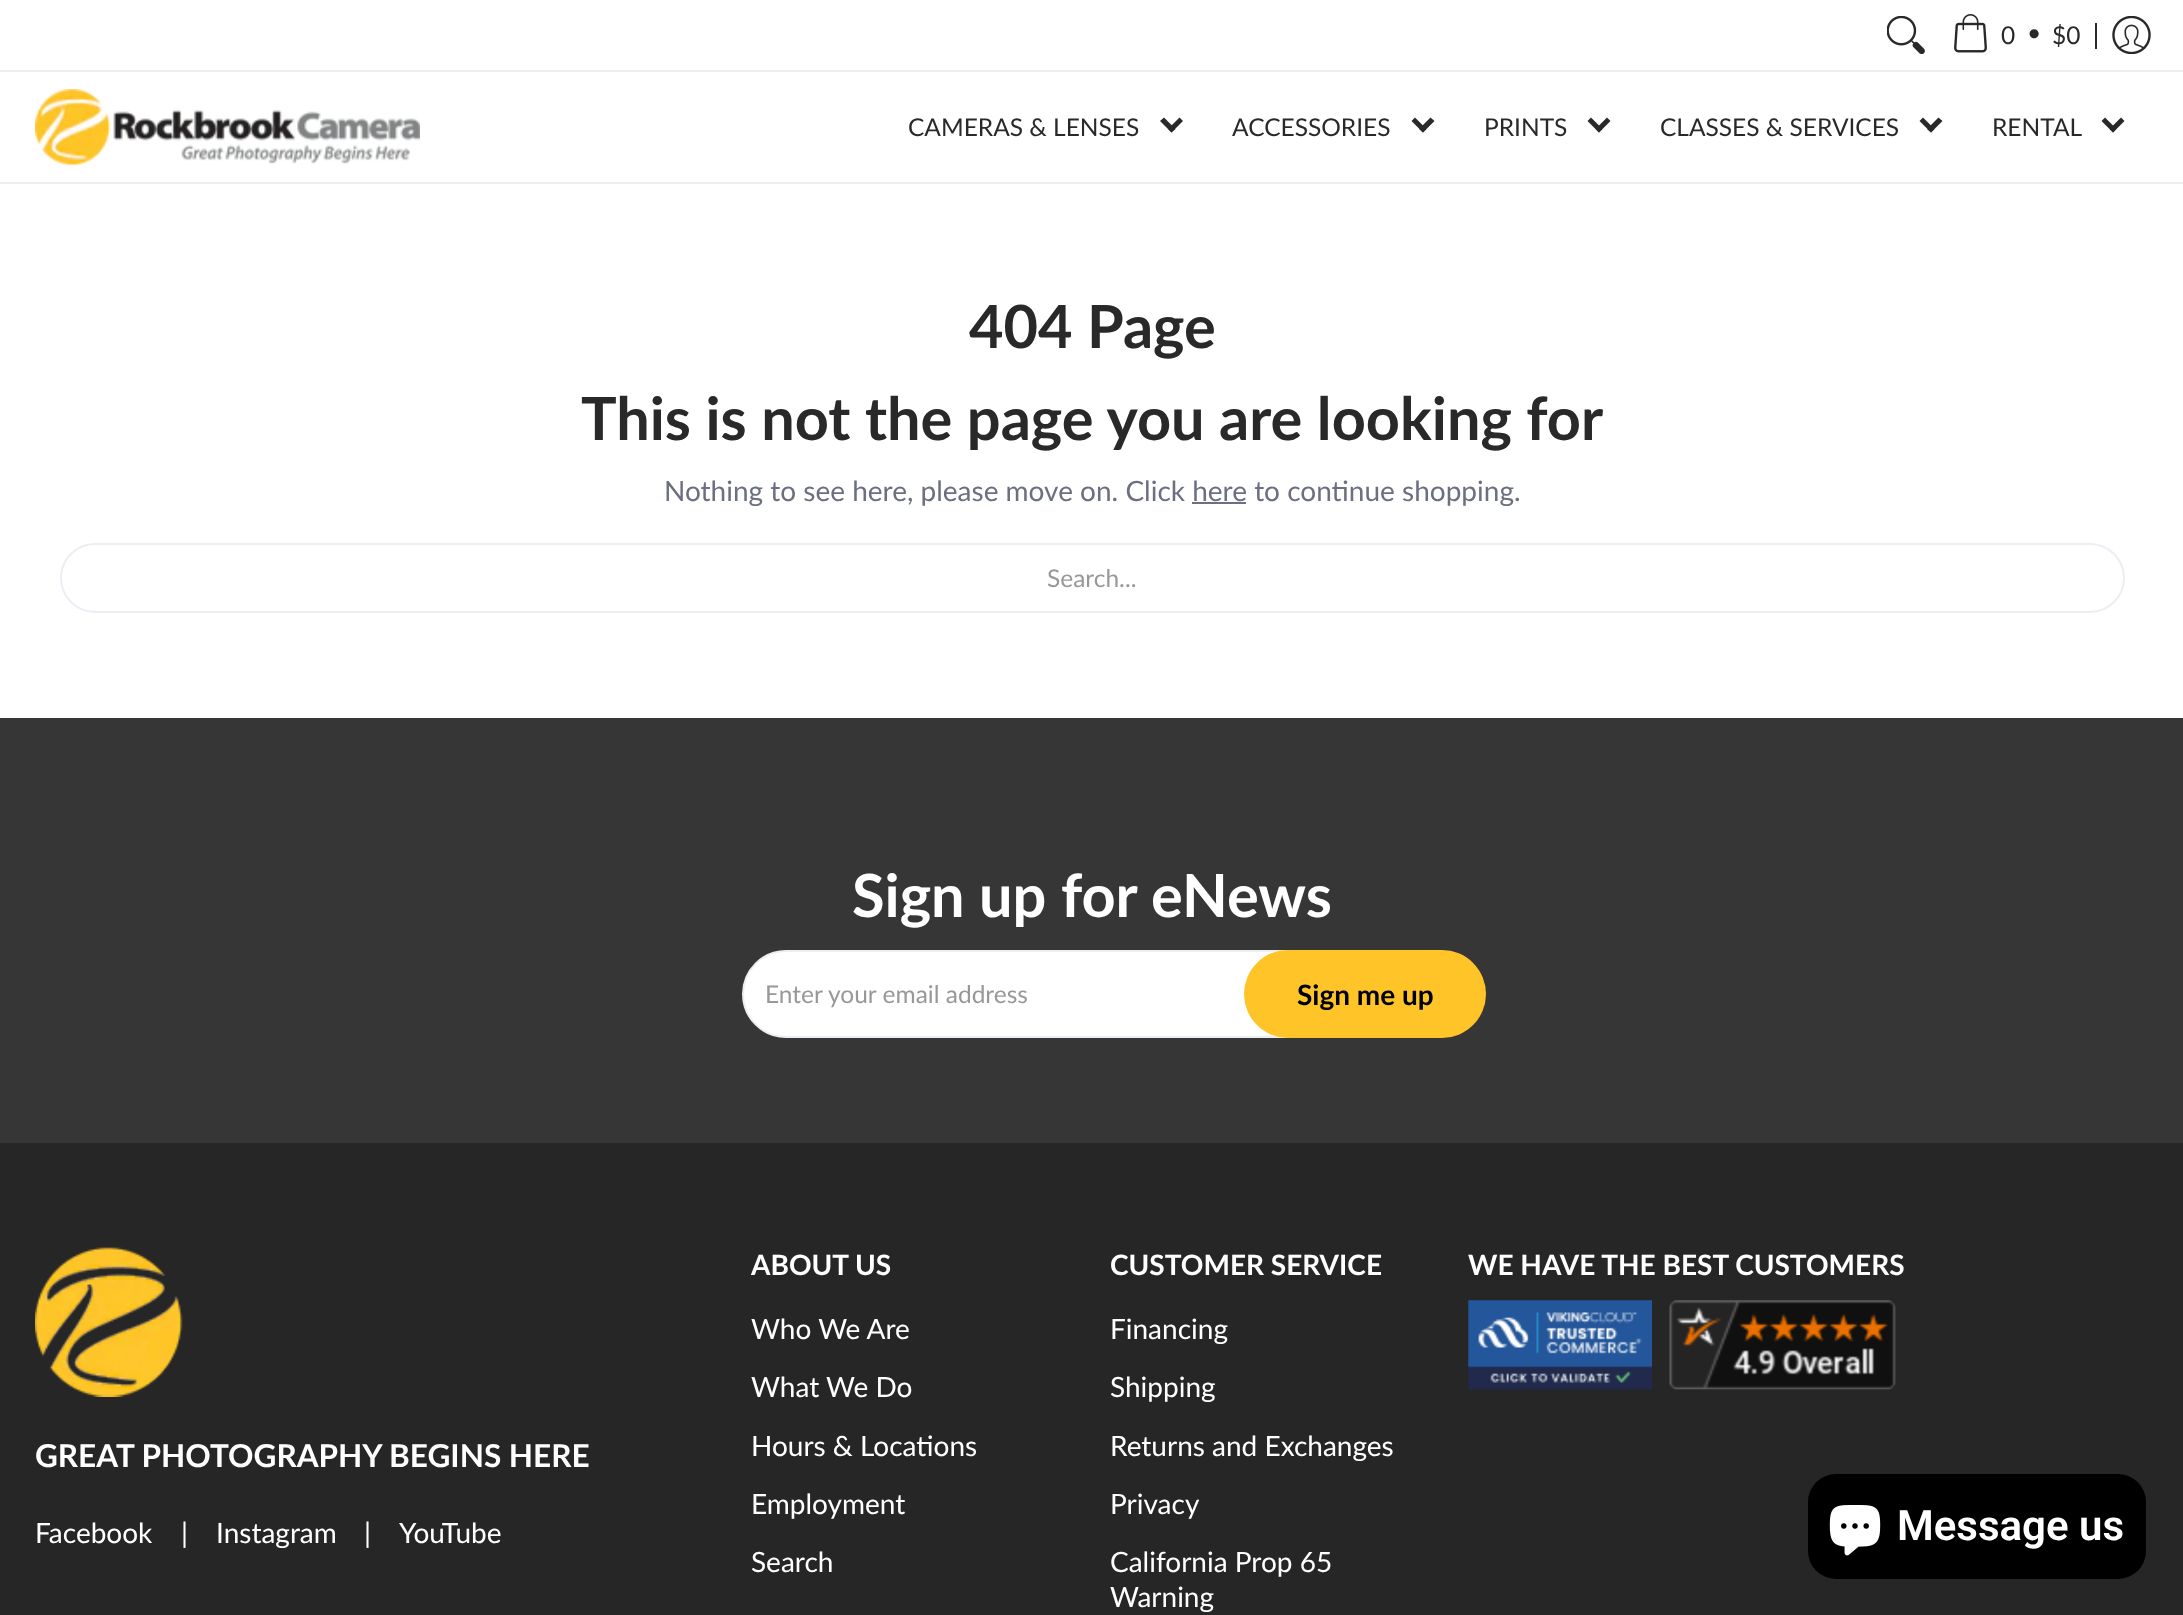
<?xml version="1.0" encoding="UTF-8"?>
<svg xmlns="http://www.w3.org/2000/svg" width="2183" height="1615">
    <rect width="100%" height="100%" fill="#FFFFFF"/>
    <rect x="0" y="70" width="2183" height="2" fill="#EDEEF4"/>
    <image x="1887" y="16" width="38" height="38" href="img_01.png"/>
    <image x="1954" y="14" width="33" height="39" href="img_02.png"/>
    <text x="2001" y="44" font-family="Lato" font-size="24.5" fill="#292929">0</text>
    <text x="2027" y="41" font-family="Lato" font-size="24.5" fill="#292929">•</text>
    <text x="2052" y="44" font-family="Lato" font-size="24.5" fill="#292929">$0</text>
    <rect x="2095" y="23" width="2" height="26" fill="#292929"/>
    <image x="2112" y="16" width="39" height="38" href="img_03.png"/>
    <rect x="0" y="182" width="2183" height="2" fill="#EDEEF4"/>
    <image x="35" y="89" width="385" height="77" href="img_04.png"/>
    <text x="908" y="136" font-family="Lato" font-size="24.5" fill="#292929">CAMERAS &amp; LENSES</text>
    <path d="M 1183 121 L 1171.5 132.5 L 1168 129 L 1179.5 117.5 Z" fill="#292929"/>
    <path d="M 1175.5 129 L 1171.5 132.5 L 1160 121 L 1164 117.5 Z" fill="#292929"/>
    <text x="1232" y="136" font-family="Lato" font-size="24.5" fill="#292929">ACCESSORIES</text>
    <path d="M 1434.5 121 L 1423 132.5 L 1419 129 L 1430.5 117.5 Z" fill="#292929"/>
    <path d="M 1426.5 129 L 1423 132.5 L 1411.5 121 L 1415 117.5 Z" fill="#292929"/>
    <text x="1484" y="136" font-family="Lato" font-size="24.5" fill="#292929">PRINTS</text>
    <path d="M 1610.5 121 L 1599 132.5 L 1595.5 129 L 1607 117.5 Z" fill="#292929"/>
    <path d="M 1602.5 129 L 1599 132.5 L 1587.5 121 L 1591 117.5 Z" fill="#292929"/>
    <text x="1660" y="136" font-family="Lato" font-size="24.5" fill="#292929">CLASSES &amp; SERVICES</text>
    <path d="M 1942.5 121 L 1931 132.5 L 1927 129 L 1938.5 117.5 Z" fill="#292929"/>
    <path d="M 1934.5 129 L 1931 132.5 L 1919.5 121 L 1923 117.5 Z" fill="#292929"/>
    <text x="1992" y="136" font-family="Lato" font-size="24.5" fill="#292929">RENTAL</text>
    <path d="M 2124.5 121 L 2113 132.5 L 2109.5 129 L 2121 117.5 Z" fill="#292929"/>
    <path d="M 2116.5 129 L 2113 132.5 L 2101.5 121 L 2105 117.5 Z" fill="#292929"/>
    <text x="969" y="348" font-family="Lato" font-size="59.5" font-weight="700" fill="#292929">404 Page</text>
    <text x="581" y="440" font-family="Lato" font-size="59.5" font-weight="700" fill="#292929">This is not the page you are looking for</text>
    <text x="664" y="501" font-family="Lato" font-size="28" fill="#6B6F81">Nothing to see here, please move on. Click here to continue shopping.</text>
    <rect x="1192" y="502" width="54" height="2" fill="#6B6F81"/>
    <rect x="61" y="544" width="2063" height="68" rx="34" fill="none" stroke="#EDEEF4" stroke-width="2"/>
    <text x="1047" y="587" font-family="Lato" font-size="24.5" fill="#989898">Search...</text>
    <rect x="0" y="718" width="2183" height="425" fill="#363636"/>
    <text x="852" y="917" font-family="Lato" font-size="59.5" font-weight="700" fill="#FFFFFF">Sign up for eNews</text>
    <rect x="743" y="951" width="698" height="86" rx="43" fill="#FFFFFF" stroke="#EDEEF4" stroke-width="2"/>
    <text x="765" y="1003" font-family="Lato" font-size="24.5" fill="#989898">Enter your email address</text>
    <rect x="1244" y="950" width="242" height="88" rx="44" fill="#FFC428"/>
    <text x="1297" y="1005" font-family="Lato" font-size="28" font-weight="700" fill="#000000">Sign me up</text>
    <rect x="0" y="1143" width="2183" height="472" fill="#262626"/>
    <text x="751" y="1275" font-family="Lato" font-size="28" font-weight="700" fill="#FFFFFF">ABOUT US</text>
    <text x="751" y="1339" font-family="Lato" font-size="28" fill="#FFFFFF">Who We Are</text>
    <text x="751" y="1397" font-family="Lato" font-size="28" fill="#FFFFFF">What We Do</text>
    <text x="751" y="1456" font-family="Lato" font-size="28" fill="#FFFFFF">Hours &amp; Locations</text>
    <text x="751" y="1514" font-family="Lato" font-size="28" fill="#FFFFFF">Employment</text>
    <text x="751" y="1572" font-family="Lato" font-size="28" fill="#FFFFFF">Search</text>
    <text x="1110" y="1275" font-family="Lato" font-size="28" font-weight="700" fill="#FFFFFF">CUSTOMER SERVICE</text>
    <text x="1110" y="1339" font-family="Lato" font-size="28" fill="#FFFFFF">Financing</text>
    <text x="1110" y="1397" font-family="Lato" font-size="28" fill="#FFFFFF">Shipping</text>
    <text x="1110" y="1456" font-family="Lato" font-size="28" fill="#FFFFFF">Returns and Exchanges</text>
    <text x="1110" y="1514" font-family="Lato" font-size="28" fill="#FFFFFF">Privacy</text>
    <text font-family="Lato" font-size="28" fill="#FFFFFF">
        <tspan x="1110" y="1572">California Prop 65</tspan>
        <tspan x="1110" y="1607">Warning</tspan>
    </text>
    <text x="1468" y="1275" font-family="Lato" font-size="28" font-weight="700" fill="#FFFFFF">WE HAVE THE BEST CUSTOMERS</text>
    <image x="1468" y="1300" width="184" height="90" href="img_05.png"/>
    <image x="1669" y="1300" width="227" height="90" href="img_06.png"/>
    <image x="35" y="1247" width="148" height="150" href="img_07.png"/>
    <text x="35" y="1467" font-family="Lato" font-size="31.5" font-weight="700" fill="#FFFFFF">GREAT PHOTOGRAPHY BEGINS HERE</text>
    <text x="35" y="1543" font-family="Lato" font-size="28" fill="#FFFFFF">Facebook</text>
    <text x="181" y="1543" font-family="Lato" font-size="28" fill="#FFFFFF">|</text>
    <text x="216" y="1543" font-family="Lato" font-size="28" fill="#FFFFFF">Instagram</text>
    <text x="364" y="1543" font-family="Lato" font-size="28" fill="#FFFFFF">|</text>
    <text x="399" y="1543" font-family="Lato" font-size="28" fill="#FFFFFF">YouTube</text>
    <rect x="1808" y="1474" width="338" height="105" rx="28" fill="#000000"/>
    <image x="1829" y="1505" width="52" height="51" href="img_08.png"/>
    <text x="1897" y="1540" font-family="Roboto" font-size="42" font-weight="600" fill="#FFFFFF">Message us</text>
</svg>
